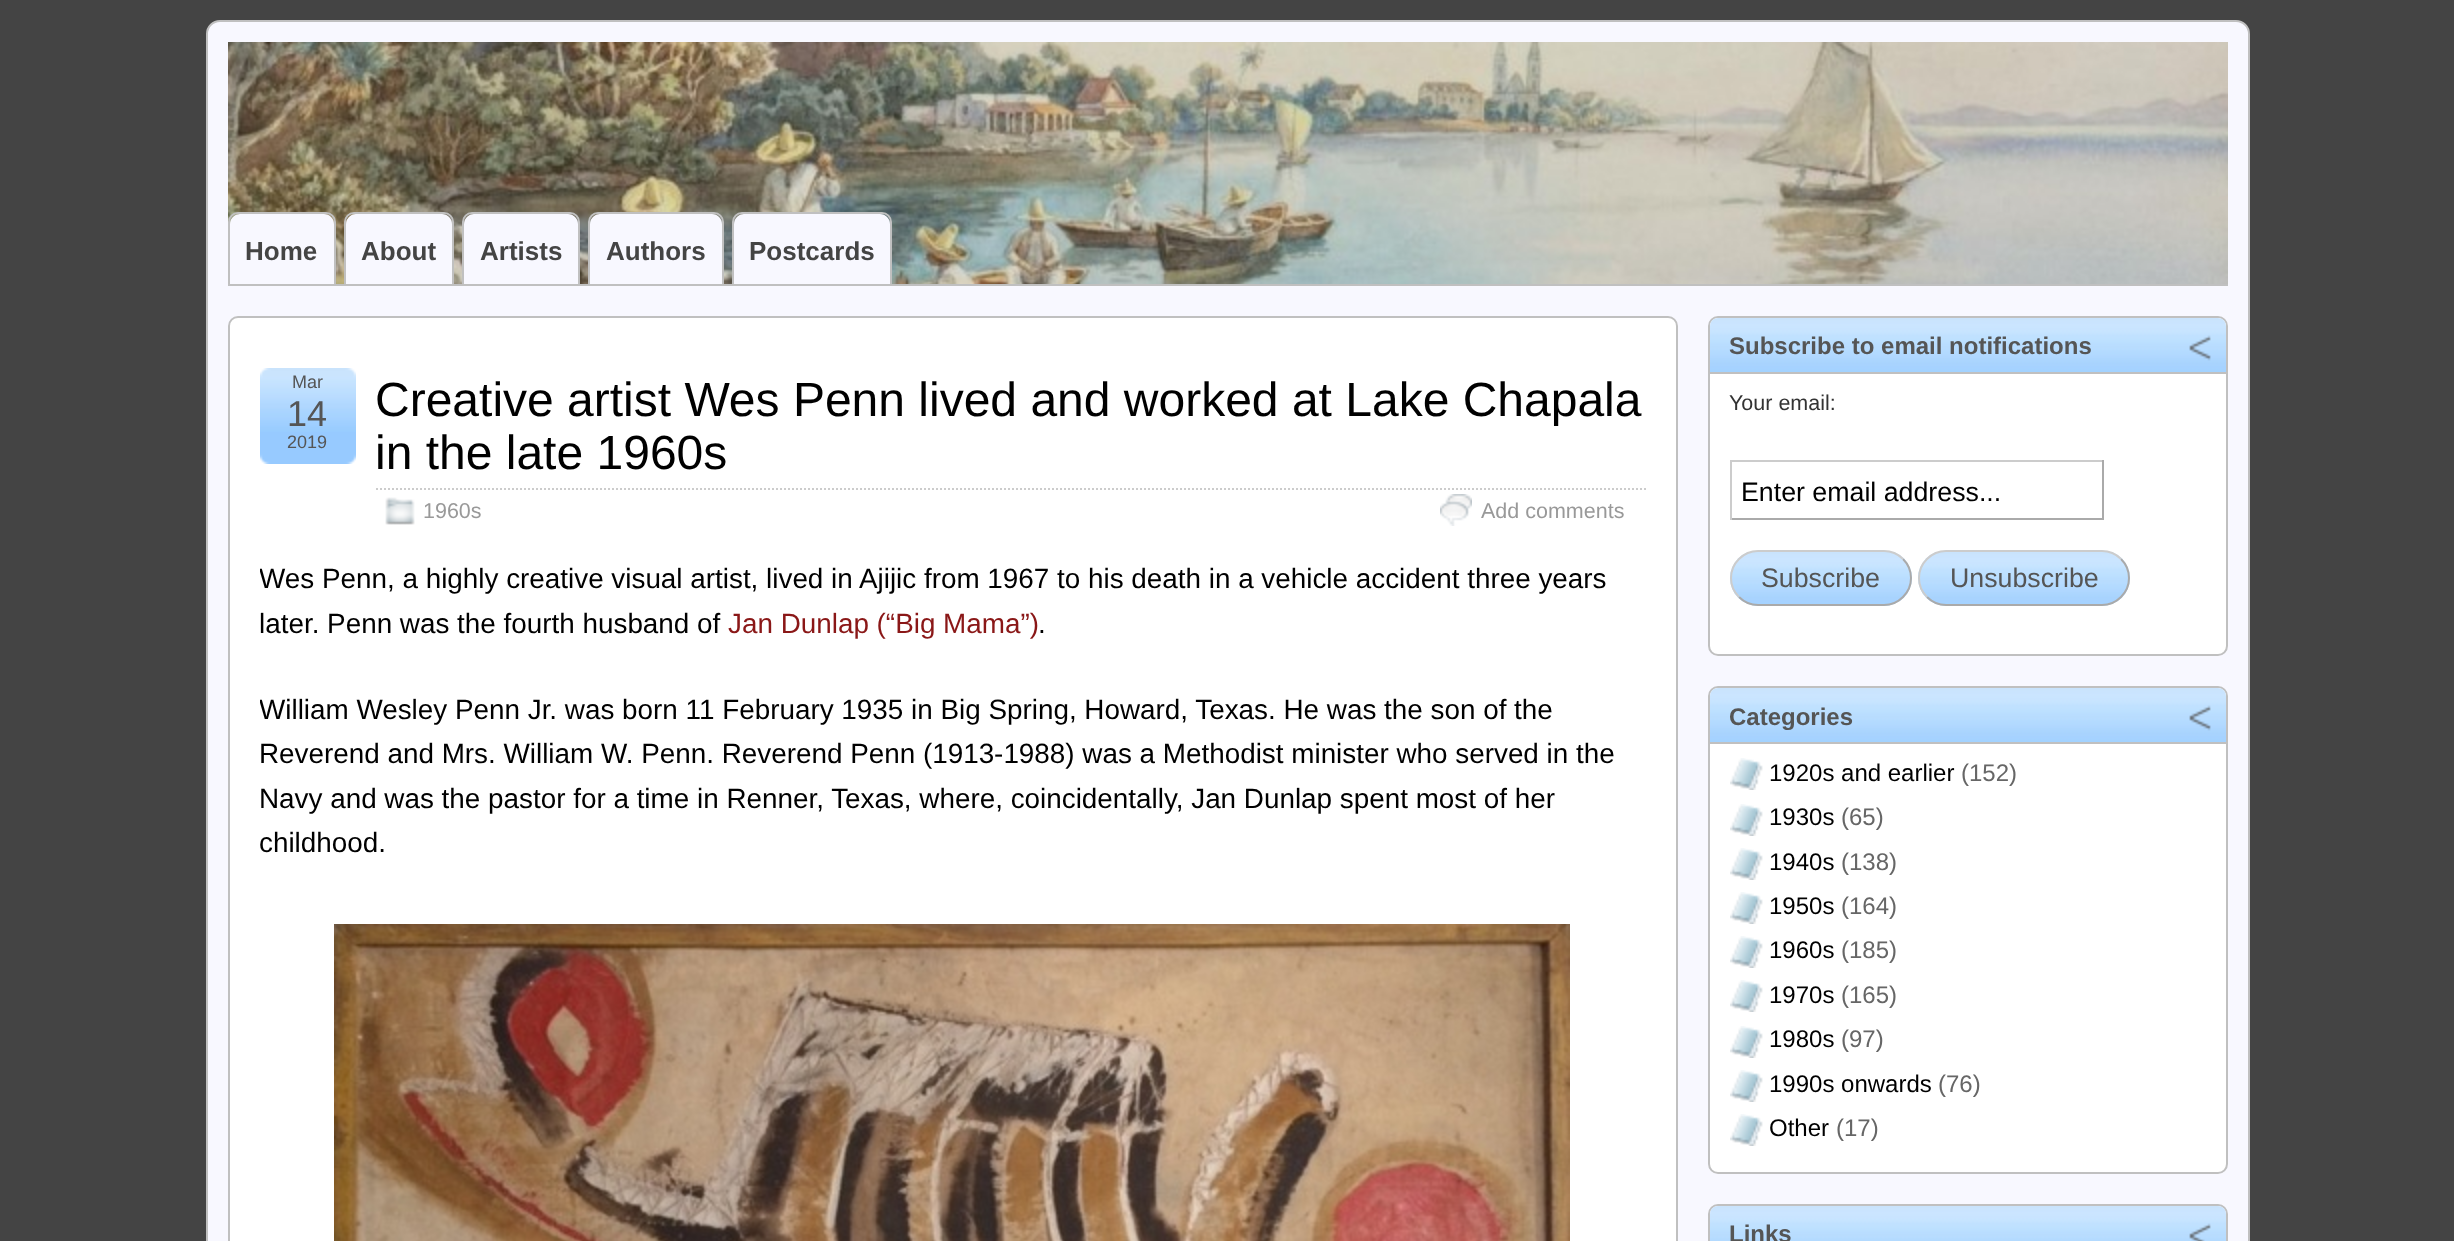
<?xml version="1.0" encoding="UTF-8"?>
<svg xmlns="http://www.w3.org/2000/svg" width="2454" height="1241">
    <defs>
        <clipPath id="clip1"><rect x="260" y="526" width="1386" height="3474"/></clipPath>
    </defs>
    <rect width="100%" height="100%" fill="#444444"/>
    <rect x="207" y="21" width="2042" height="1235" rx="13" fill="#F8F8FF" stroke="#C0C0C0" stroke-width="2"/>
    <image x="228" y="42" width="2000" height="242" href="img_01.png"/>
    <rect x="336" y="284" width="1892" height="2" fill="#C0C0C0"/>
    <path d="M 238 213 H 326 C 331 213 335 217 335 222 V 285 H 229 V 222 C 229 217 233 213 238 213 Z" fill="none" stroke="#C0C0C0" stroke-width="2"/>
    <path d="M 240 214 H 324 C 329.5 214 334 218.5 334 224 V 284 H 230 V 224 C 230 218.5 234.5 214 240 214 Z" fill="#F8F8FF"/>
    <text x="245" y="260" font-family="Liberation Sans" font-size="26" font-weight="700" fill="#444444">Home</text>
    <path d="M 354 213 H 444 C 449 213 453 217 453 222 V 285 H 345 V 222 C 345 217 349 213 354 213 Z" fill="none" stroke="#C0C0C0" stroke-width="2"/>
    <path d="M 356 214 H 442 C 447.5 214 452 218.5 452 224 V 284 H 346 V 224 C 346 218.5 350.5 214 356 214 Z" fill="#F8F8FF"/>
    <text x="361" y="260" font-family="Liberation Sans" font-size="26" font-weight="700" fill="#444444">About</text>
    <path d="M 472 213 H 570 C 575 213 579 217 579 222 V 285 H 463 V 222 C 463 217 467 213 472 213 Z" fill="none" stroke="#C0C0C0" stroke-width="2"/>
    <path d="M 474 214 H 568 C 573.5 214 578 218.5 578 224 V 284 H 464 V 224 C 464 218.5 468.5 214 474 214 Z" fill="#F8F8FF"/>
    <text x="480" y="260" font-family="Liberation Sans" font-size="26" font-weight="700" fill="#444444">Artists</text>
    <path d="M 598 213 H 714 C 719 213 723 217 723 222 V 285 H 589 V 222 C 589 217 593 213 598 213 Z" fill="none" stroke="#C0C0C0" stroke-width="2"/>
    <path d="M 600 214 H 712 C 717.5 214 722 218.5 722 224 V 284 H 590 V 224 C 590 218.5 594.5 214 600 214 Z" fill="#F8F8FF"/>
    <text x="606" y="260" font-family="Liberation Sans" font-size="26" font-weight="700" fill="#444444">Authors</text>
    <path d="M 742 213 H 882 C 887 213 891 217 891 222 V 285 H 733 V 222 C 733 217 737 213 742 213 Z" fill="none" stroke="#C0C0C0" stroke-width="2"/>
    <path d="M 744 214 H 880 C 885.5 214 890 218.5 890 224 V 284 H 734 V 224 C 734 218.5 738.5 214 744 214 Z" fill="#F8F8FF"/>
    <text x="749" y="260" font-family="Liberation Sans" font-size="26" font-weight="700" fill="#444444">Postcards</text>
    <rect x="229" y="317" width="1448" height="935" rx="9" fill="#FFFFFF" stroke="#C0C0C0" stroke-width="2"/>
    <image x="260" y="368" width="96" height="96" href="img_02.png"/>
    <text x="292" y="388" font-family="Liberation Sans" font-size="18" fill="#555555">Mar</text>
    <text x="287" y="426" font-family="Liberation Sans" font-size="36" fill="#555555">14</text>
    <text x="287" y="448" font-family="Liberation Sans" font-size="18" fill="#555555">2019</text>
    <path d="M 376 489 H 1646" fill="none" stroke="#CCCCCC" stroke-width="2" stroke-dasharray="2 2"/>
    <text font-family="Liberation Sans" font-size="48" fill="#000000">
        <tspan x="375" y="416">Creative artist Wes Penn lived and worked at Lake Chapala</tspan>
        <tspan x="375" y="469">in the late 1960s</tspan>
    </text>
    <image x="385" y="497" width="30" height="28" href="img_03.png"/>
    <text x="423" y="518" font-family="Liberation Sans" font-size="21.5" fill="#999999">1960s</text>
    <image x="1440" y="494" width="32" height="32" href="img_04.png"/>
    <text x="1481" y="518" font-family="Liberation Sans" font-size="21.5" fill="#999999">Add comments</text>
    <g clip-path="url(#clip1)">
        <text x="259" y="588" font-family="Liberation Sans" font-size="27.85" fill="#000000">Wes Penn, a highly creative visual artist, lived in Ajijic from 1967 to his death in a vehicle accident three years</text>
    </g>
    <text x="259" y="633" font-family="Liberation Sans" font-size="27.85" fill="#000000">later. Penn was the fourth husband of</text>
    <text x="728" y="633" font-family="Liberation Sans" font-size="27.85" fill="#8A1717">Jan Dunlap (“Big Mama”)</text>
    <text x="1038" y="633" font-family="Liberation Sans" font-size="27.85" fill="#000000">.</text>
    <g clip-path="url(#clip1)">
        <text x="259" y="719" font-family="Liberation Sans" font-size="27.85" fill="#000000">William Wesley Penn Jr. was born 11 February 1935 in Big Spring, Howard, Texas. He was the son of the</text>
    </g>
    <text font-family="Liberation Sans" font-size="27.85" fill="#000000">
        <tspan x="259" y="763">Reverend and Mrs. William W. Penn. Reverend Penn (1913-1988) was a Methodist minister who served in the</tspan>
        <tspan x="259" y="808">Navy and was the pastor for a time in Renner, Texas, where, coincidentally, Jan Dunlap spent most of her</tspan>
        <tspan x="259" y="852">childhood.</tspan>
    </text>
    <image x="334" y="924" width="1236" height="317" href="img_05.png"/>
    <rect x="1709" y="317" width="518" height="338" rx="9" fill="#FFFFFF" stroke="#C0C0C0" stroke-width="2"/>
    <image x="1710" y="318" width="516" height="54" href="img_06.png"/>
    <rect x="1710" y="372" width="516" height="2" fill="#C0C0C0"/>
    <text x="1729" y="354" font-family="Liberation Sans" font-size="24" font-weight="700" fill="#555555">Subscribe to email notifications</text>
    <image x="2189" y="335" width="22" height="26" href="img_07.png"/>
    <text x="1729" y="410" font-family="Liberation Sans" font-size="21.5" fill="#333333">Your email:</text>
    <rect x="1730" y="460" width="374" height="2" fill="#CCCCCC"/>
    <rect x="2102" y="460" width="2" height="60" fill="#AAAAAA"/>
    <rect x="1730" y="518" width="374" height="2" fill="#AAAAAA"/>
    <rect x="1730" y="460" width="2" height="60" fill="#CCCCCC"/>
    <text x="1741" y="501" font-family="Liberation Sans" font-size="26.75" fill="#000000">Enter email address...</text>
    <image x="1730" y="552" width="182" height="54" href="img_08.png"/>
    <path d="M 1903 559 C 1908 564 1911 571 1911 578 C 1911 585 1908 592 1903 597 C 1898 602 1891 605 1884 605 H 1758 C 1751 605 1744 602 1739 597" fill="none" stroke="#AAAAAA" stroke-width="2"/>
    <path d="M 1739 597 C 1734 592 1731 585 1731 578 C 1731 571 1734 564 1739 559 C 1744 554 1751 551 1758 551 H 1884 C 1891 551 1898 554 1903 559" fill="none" stroke="#CCCCCC" stroke-width="2"/>
    <text x="1761" y="587" font-family="Liberation Sans" font-size="26.75" fill="#555555">Subscribe</text>
    <image x="1918" y="552" width="212" height="54" href="img_09.png"/>
    <path d="M 2121 559 C 2126 564 2129 571 2129 578 C 2129 585 2126 592 2121 597 C 2116 602 2109 605 2102 605 H 1946 C 1939 605 1932 602 1927 597" fill="none" stroke="#AAAAAA" stroke-width="2"/>
    <path d="M 1927 597 C 1922 592 1919 585 1919 578 C 1919 571 1922 564 1927 559 C 1932 554 1939 551 1946 551 H 2102 C 2109 551 2116 554 2121 559" fill="none" stroke="#CCCCCC" stroke-width="2"/>
    <text x="1950" y="587" font-family="Liberation Sans" font-size="26.75" fill="#555555">Unsubscribe</text>
    <rect x="1709" y="687" width="518" height="486" rx="9" fill="#FFFFFF" stroke="#C0C0C0" stroke-width="2"/>
    <image x="1710" y="688" width="516" height="54" href="img_06.png"/>
    <rect x="1710" y="742" width="516" height="2" fill="#C0C0C0"/>
    <text x="1729" y="725" font-family="Liberation Sans" font-size="24" font-weight="700" fill="#555555">Categories</text>
    <image x="2189" y="705" width="22" height="26" href="img_07.png"/>
    <image x="1730" y="758" width="33" height="32" href="img_10.png"/>
    <text x="1769" y="781" font-family="Liberation Sans" font-size="24" fill="#000000">1920s and earlier</text>
    <text x="1961" y="781" font-family="Liberation Sans" font-size="24" fill="#666666">(152)</text>
    <image x="1730" y="804" width="33" height="32" href="img_10.png"/>
    <text x="1769" y="825" font-family="Liberation Sans" font-size="24" fill="#000000">1930s</text>
    <text x="1841" y="825" font-family="Liberation Sans" font-size="24" fill="#666666">(65)</text>
    <image x="1730" y="848" width="33" height="32" href="img_10.png"/>
    <text x="1769" y="870" font-family="Liberation Sans" font-size="24" fill="#000000">1940s</text>
    <text x="1841" y="870" font-family="Liberation Sans" font-size="24" fill="#666666">(138)</text>
    <image x="1730" y="892" width="33" height="32" href="img_10.png"/>
    <text x="1769" y="914" font-family="Liberation Sans" font-size="24" fill="#000000">1950s</text>
    <text x="1841" y="914" font-family="Liberation Sans" font-size="24" fill="#666666">(164)</text>
    <image x="1730" y="936" width="33" height="32" href="img_10.png"/>
    <text x="1769" y="958" font-family="Liberation Sans" font-size="24" fill="#000000">1960s</text>
    <text x="1841" y="958" font-family="Liberation Sans" font-size="24" fill="#666666">(185)</text>
    <image x="1730" y="980" width="33" height="32" href="img_10.png"/>
    <text x="1769" y="1003" font-family="Liberation Sans" font-size="24" fill="#000000">1970s</text>
    <text x="1841" y="1003" font-family="Liberation Sans" font-size="24" fill="#666666">(165)</text>
    <image x="1730" y="1026" width="33" height="32" href="img_10.png"/>
    <text x="1769" y="1047" font-family="Liberation Sans" font-size="24" fill="#000000">1980s</text>
    <text x="1841" y="1047" font-family="Liberation Sans" font-size="24" fill="#666666">(97)</text>
    <image x="1730" y="1070" width="33" height="32" href="img_10.png"/>
    <text x="1769" y="1092" font-family="Liberation Sans" font-size="24" fill="#000000">1990s onwards</text>
    <text x="1938" y="1092" font-family="Liberation Sans" font-size="24" fill="#666666">(76)</text>
    <image x="1730" y="1114" width="33" height="32" href="img_10.png"/>
    <text x="1769" y="1136" font-family="Liberation Sans" font-size="24" fill="#000000">Other</text>
    <text x="1836" y="1136" font-family="Liberation Sans" font-size="24" fill="#666666">(17)</text>
    <rect x="1709" y="1205" width="518" height="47" rx="9" fill="none" stroke="#C0C0C0" stroke-width="2"/>
    <image x="1710" y="1206" width="516" height="35" href="img_11.png"/>
    <text x="1729" y="1242" font-family="Liberation Sans" font-size="24" font-weight="700" fill="#555555">Links</text>
    <image x="2189" y="1223" width="22" height="18" href="img_12.png"/>
</svg>
